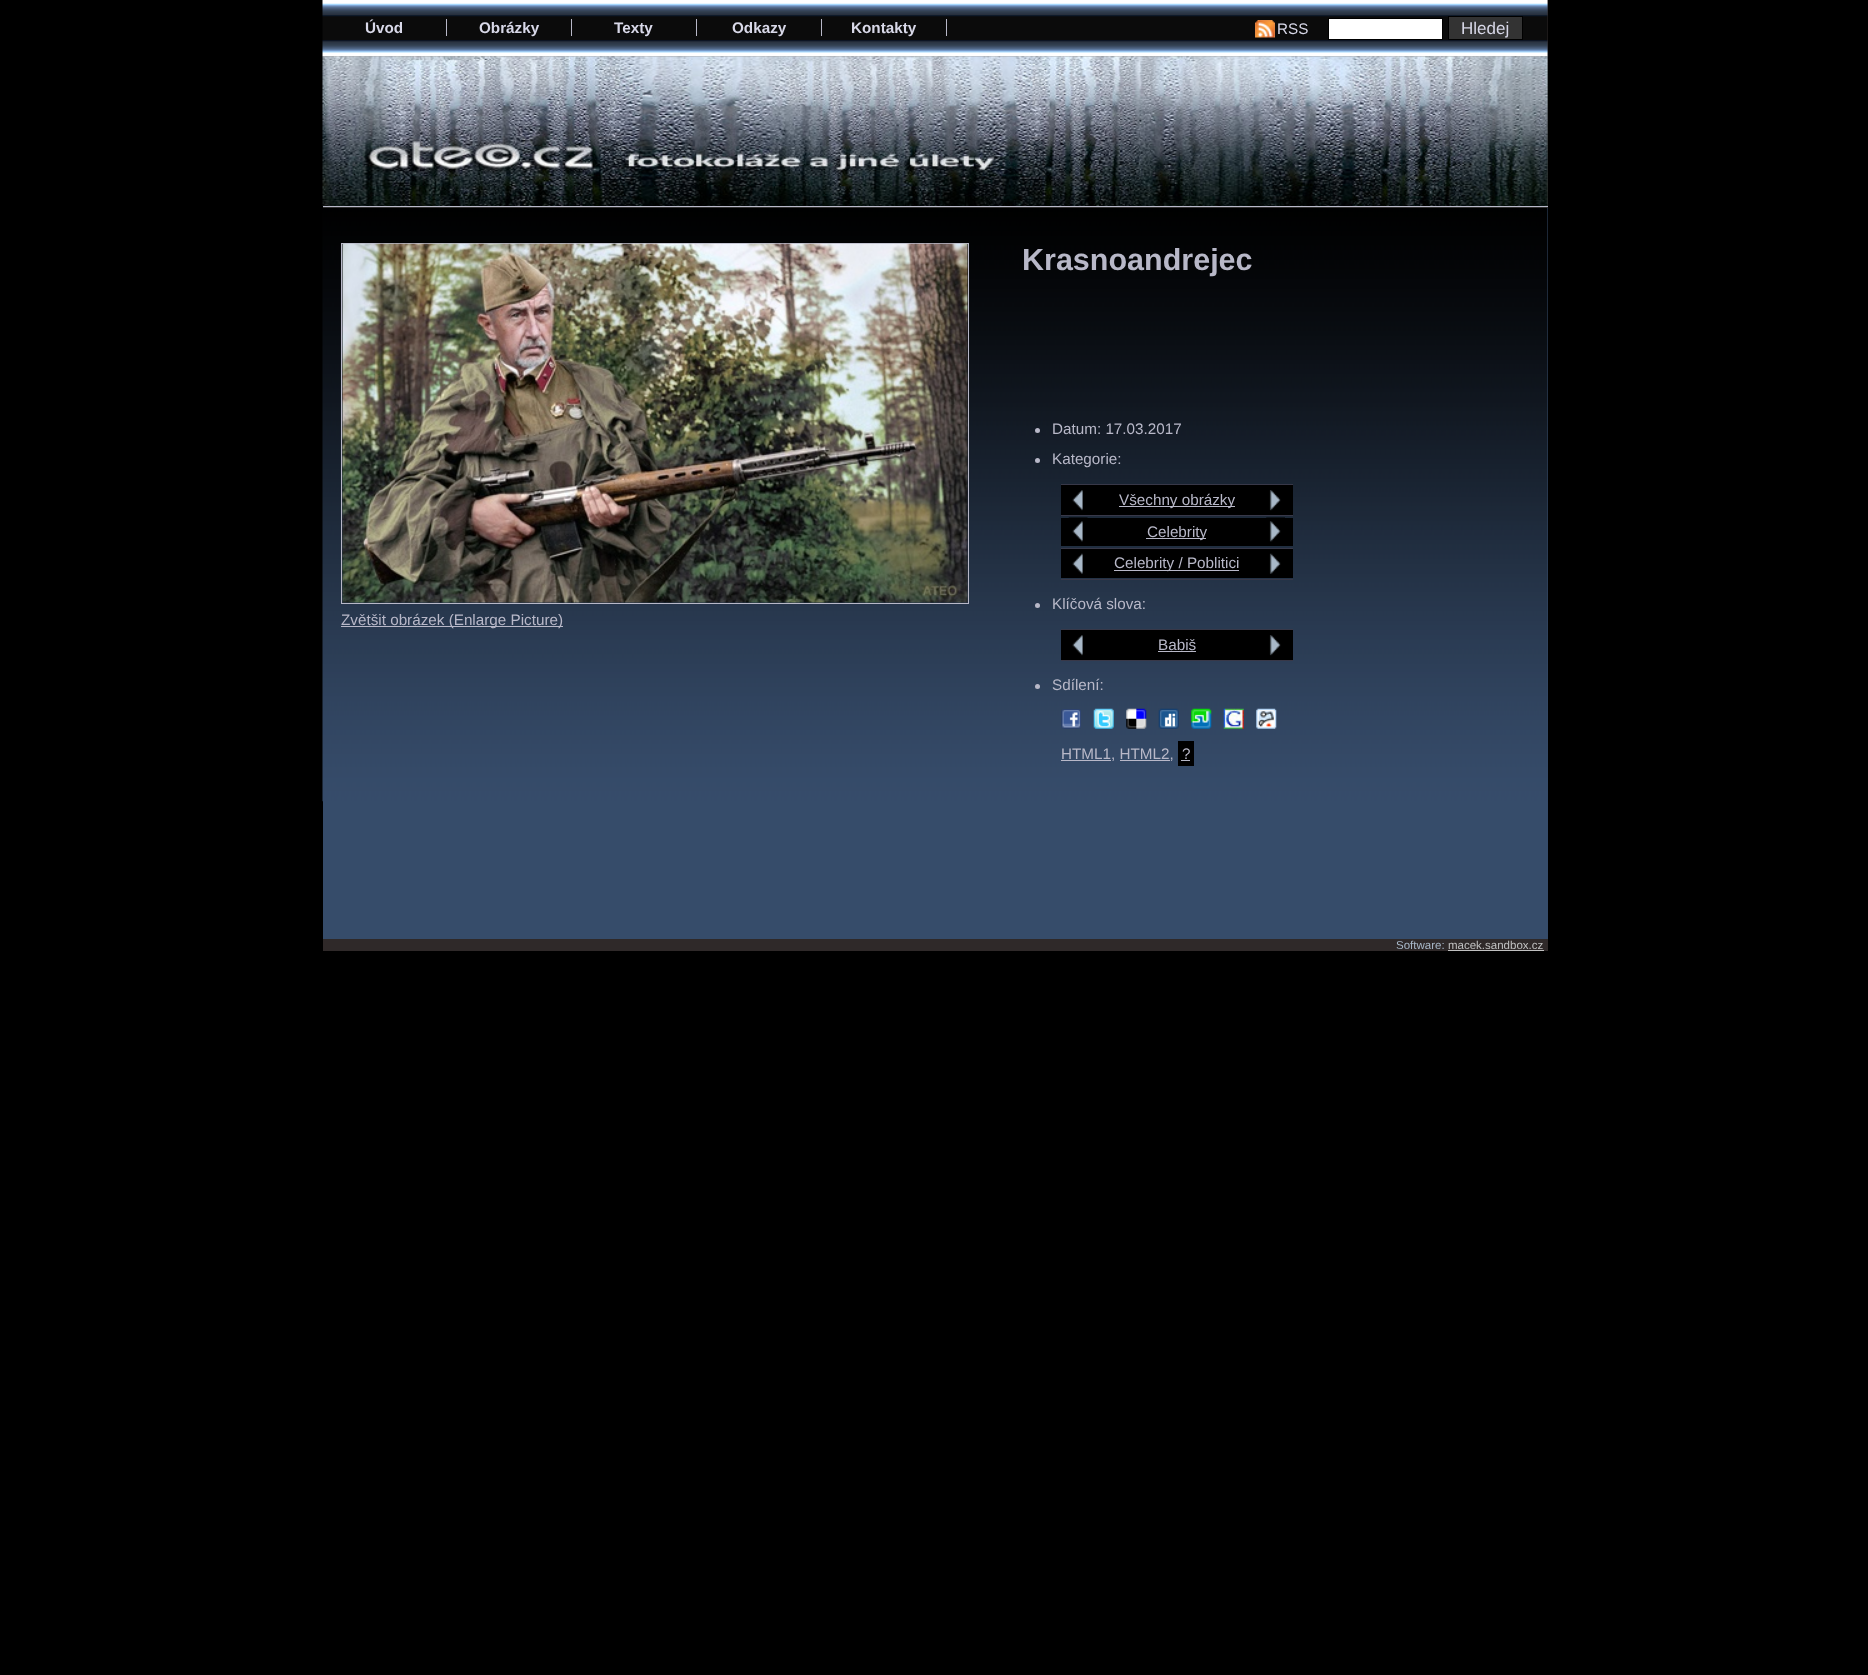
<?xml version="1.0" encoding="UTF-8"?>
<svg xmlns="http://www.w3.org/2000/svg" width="1868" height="1675">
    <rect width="100%" height="100%" fill="#000000"/>
    <rect x="323" y="0" width="1225" height="951" fill="#2F2929"/>
    <rect x="323" y="208" width="1225" height="731" fill="#364C6A"/>
    <image x="322" y="207" width="1226" height="595" href="img_04.png"/>
    <rect x="323" y="56" width="1225" height="152" fill="#333333"/>
    <image x="322" y="56" width="1226" height="151" href="img_03.png"/>
    <image x="322" y="0" width="1226" height="57" href="img_01.png"/>
    <rect x="446" y="19" width="1" height="17" fill="#B8B8C8"/>
    <text x="365" y="33" font-family="Liberation Sans" font-size="15.25" font-weight="700" fill="#D8D8E8">Úvod</text>
    <rect x="571" y="19" width="1" height="17" fill="#B8B8C8"/>
    <text x="479" y="33" font-family="Liberation Sans" font-size="15.25" font-weight="700" fill="#D8D8E8">Obrázky</text>
    <rect x="696" y="19" width="1" height="17" fill="#B8B8C8"/>
    <text x="614" y="33" font-family="Liberation Sans" font-size="15.25" font-weight="700" fill="#D8D8E8">Texty</text>
    <rect x="821" y="19" width="1" height="17" fill="#B8B8C8"/>
    <text x="732" y="33" font-family="Liberation Sans" font-size="15.25" font-weight="700" fill="#D8D8E8">Odkazy</text>
    <rect x="946" y="19" width="1" height="17" fill="#B8B8C8"/>
    <text x="851" y="33" font-family="Liberation Sans" font-size="15.25" font-weight="700" fill="#D8D8E8">Kontakty</text>
    <image x="1255" y="20" width="20" height="18" href="img_02.png"/>
    <text x="1277" y="34" font-family="Liberation Sans" font-size="15.25" fill="#D8D8E8">RSS</text>
    <rect x="1328.5" y="18.5" width="114" height="21" fill="#FFFFFF" stroke="#000000"/>
    <rect x="1448.5" y="16.5" width="74" height="23" fill="#333333" stroke="#000000"/>
    <text x="1461" y="34" font-family="Liberation Sans" font-size="17" fill="#D8D8E8">Hledej</text>
    <rect x="323" y="206" width="1225" height="1" fill="#B8B8C8"/>
    <rect x="341.5" y="243.5" width="627" height="360" fill="none" stroke="#B8B8C8"/>
    <image x="342" y="243" width="626" height="360" href="img_05.png"/>
    <rect x="341" y="626" width="222" height="1" fill="#B8B8C8"/>
    <text x="341" y="625" font-family="Liberation Sans" font-size="15.25" fill="#B8B8C8">Zvětšit obrázek (Enlarge Picture)</text>
    <text x="1022" y="270" font-family="Liberation Sans" font-size="30.5" font-weight="700" fill="#B8B8C8">Krasnoandrejec</text>
    <circle cx="1037.5" cy="430.5" r="2.5" fill="#B8B8C8"/>
    <text x="1052" y="434" font-family="Liberation Sans" font-size="15.25" fill="#B8B8C8">Datum: 17.03.2017</text>
    <circle cx="1037.5" cy="460.5" r="2.5" fill="#B8B8C8"/>
    <text x="1052" y="464" font-family="Liberation Sans" font-size="15.25" fill="#B8B8C8">Kategorie:</text>
    <rect x="1061" y="485" width="232" height="30" fill="#000000"/>
    <rect x="1061" y="484" width="232" height="1" fill="#383848"/>
    <image x="1072" y="490" width="11" height="21" href="img_06.png"/>
    <rect x="1119" y="506" width="116" height="1" fill="#B8B8C8"/>
    <text x="1119" y="505" font-family="Liberation Sans" font-size="15.25" fill="#B8B8C8">Všechny obrázky</text>
    <image x="1269" y="490" width="12" height="21" href="img_07.png"/>
    <rect x="1061" y="518" width="232" height="28" fill="#000000"/>
    <rect x="1061" y="515" width="232" height="1" fill="#383848"/>
    <image x="1068" y="517" width="20" height="25" href="img_08.png"/>
    <rect x="1146" y="538" width="60" height="1" fill="#B8B8C8"/>
    <text x="1147" y="537" font-family="Liberation Sans" font-size="15.25" fill="#B8B8C8">Celebrity</text>
    <image x="1266" y="517" width="19" height="25" href="img_09.png"/>
    <rect x="1061" y="549" width="232" height="29" fill="#000000"/>
    <rect x="1061" y="548" width="232" height="1" fill="#383848"/>
    <rect x="1061" y="579" width="232" height="1" fill="#383848"/>
    <image x="1072" y="553" width="11" height="21" href="img_10.png"/>
    <rect x="1114" y="570" width="125" height="1" fill="#B8B8C8"/>
    <text x="1114" y="568" font-family="Liberation Sans" font-size="15.25" fill="#B8B8C8">Celebrity / Poblitici</text>
    <image x="1269" y="553" width="12" height="21" href="img_11.png"/>
    <circle cx="1037.5" cy="605.5" r="2.5" fill="#B8B8C8"/>
    <text x="1052" y="609" font-family="Liberation Sans" font-size="15.25" fill="#B8B8C8">Klíčová slova:</text>
    <rect x="1061" y="630" width="232" height="30" fill="#000000"/>
    <rect x="1061" y="629" width="232" height="1" fill="#383848"/>
    <rect x="1061" y="660" width="232" height="1" fill="#383848"/>
    <image x="1072" y="635" width="11" height="21" href="img_06.png"/>
    <text x="1158" y="650" font-family="Liberation Sans" font-size="15.25" fill="#B8B8C8">Babiš</text>
    <rect x="1158" y="651" width="38" height="1" fill="#B8B8C8"/>
    <image x="1269" y="635" width="12" height="21" href="img_07.png"/>
    <circle cx="1037.5" cy="686.5" r="2.5" fill="#B8B8C8"/>
    <text x="1052" y="690" font-family="Liberation Sans" font-size="15.25" fill="#B8B8C8">Sdílení:</text>
    <image x="1061" y="709" width="20" height="20" href="img_12.png"/>
    <image x="1093" y="708" width="21" height="21" href="img_13.png"/>
    <image x="1126" y="708" width="21" height="21" href="img_14.png"/>
    <image x="1158" y="708" width="21" height="21" href="img_15.png"/>
    <image x="1191" y="708" width="21" height="21" href="img_16.png"/>
    <image x="1223" y="708" width="21" height="21" href="img_17.png"/>
    <image x="1256" y="708" width="21" height="21" href="img_18.png"/>
    <rect x="1061" y="760" width="50" height="1" fill="#B8B8C8"/>
    <text x="1061" y="759" font-family="Liberation Sans" font-size="15.25" fill="#B8B8C8">HTML1, HTML2,</text>
    <rect x="1178" y="741" width="16" height="25" fill="#000000"/>
    <text x="1182" y="759" font-family="Liberation Sans" font-size="15.25" fill="#B8B8C8">?</text>
    <rect x="1181" y="760" width="9" height="1" fill="#B8B8C8"/>
    <rect x="1120" y="760" width="50" height="1" fill="#B8B8C8"/>
    <text x="1396" y="949" font-family="Liberation Sans" font-size="11.5" fill="#A8B8C8">Software:</text>
    <text x="1448" y="949" font-family="Liberation Sans" font-size="11.5" fill="#C0C0C0">macek.sandbox.cz</text>
    <rect x="1448" y="950" width="96" height="1" fill="#C0C0C0"/>
</svg>
